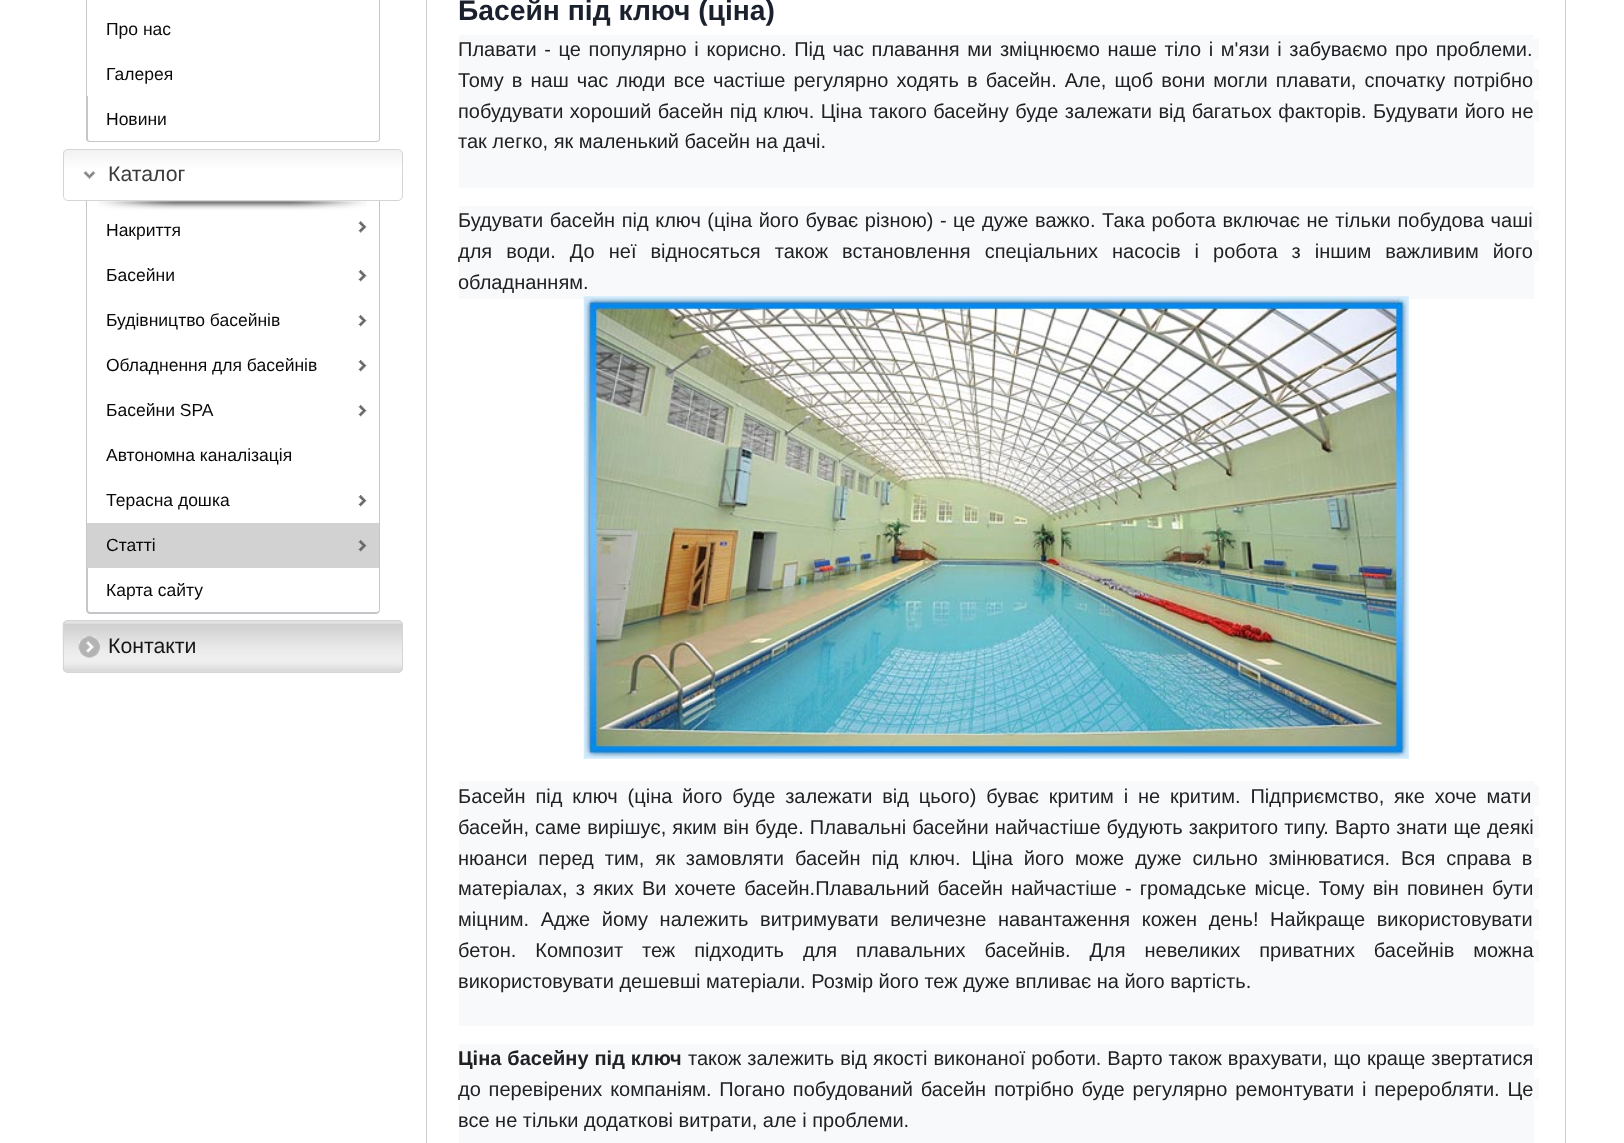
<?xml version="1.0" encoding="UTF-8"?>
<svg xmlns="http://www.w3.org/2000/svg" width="1624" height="1143">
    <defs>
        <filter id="blur1" x="-50%" y="-200%" width="200%" height="500%"><feGaussianBlur stdDeviation="0.5"/></filter>
    </defs>
    <rect width="100%" height="100%" fill="#FFFFFF"/>
    <rect x="379" y="0" width="1" height="96" fill="#C6C5C9"/>
    <rect x="86" y="0" width="1" height="96" fill="#C6C5C9"/>
    <text x="106" y="35" font-family="Liberation Sans" font-size="17.5" fill="#090909">Про нас</text>
    <text x="106" y="80" font-family="Liberation Sans" font-size="17.5" fill="#090909">Галерея</text>
    <path d="M 86 96 H 380 V 139 C 380 141 378 142 376 142 H 90 C 88 142 86 141 86 139 Z M 88 96 H 379 V 139 C 379 140 378 141 376 141 H 90 C 89 141 88 140 88 139 Z" fill="#C6C5C9" fill-rule="evenodd"/>
    <text x="106" y="125" font-family="Liberation Sans" font-size="17.5" fill="#090909">Новини</text>
    <image x="98" y="201" width="269" height="32" href="img_02.png"/>
    <rect x="379" y="201" width="1" height="367" fill="#C6C5C9"/>
    <rect x="86" y="201" width="1" height="367" fill="#C6C5C9"/>
    <image x="63" y="150" width="339" height="52" href="img_01.png"/>
    <rect x="63.5" y="149.5" width="339" height="51" rx="4.5" fill="none" stroke="#D5D5D6"/>
    <text x="108" y="181" font-family="Liberation Sans" font-size="21.25" fill="#3B3B3B">Каталог</text>
    <text x="106" y="236" font-family="Liberation Sans" font-size="17.5" fill="#090909">Накриття</text>
    <image x="358" y="270" width="9" height="12" href="img_03.png"/>
    <text x="106" y="281" font-family="Liberation Sans" font-size="17.5" fill="#090909">Басейни</text>
    <image x="358" y="315" width="9" height="12" href="img_04.png"/>
    <text x="106" y="326" font-family="Liberation Sans" font-size="17.5" fill="#090909">Будівництво басейнів</text>
    <image x="358" y="360" width="9" height="12" href="img_04.png"/>
    <text x="106" y="371" font-family="Liberation Sans" font-size="17.5" fill="#090909">Обладнення для басейнів</text>
    <image x="358" y="405" width="9" height="12" href="img_04.png"/>
    <text x="106" y="416" font-family="Liberation Sans" font-size="17.5" fill="#090909">Басейни SPA</text>
    <text x="106" y="461" font-family="Liberation Sans" font-size="17.5" fill="#090909">Автономна каналізація</text>
    <image x="358" y="495" width="9" height="12" href="img_04.png"/>
    <text x="106" y="506" font-family="Liberation Sans" font-size="17.5" fill="#090909">Терасна дошка</text>
    <rect x="87" y="523" width="292" height="45" fill="#D3D2D2"/>
    <image x="358" y="540" width="9" height="12" href="img_05.png"/>
    <text x="106" y="551" font-family="Liberation Sans" font-size="17.5" fill="#090909">Статті</text>
    <path d="M 86 568 H 380 V 610 C 380 612 378 614 376 614 H 90 C 88 614 86 612 86 610 Z M 88 568 H 379 V 610 C 379 611 378 612 376 612 H 90 C 89 612 88 611 88 610 Z" fill="#C6C5C9" fill-rule="evenodd"/>
    <text x="106" y="596" font-family="Liberation Sans" font-size="17.5" fill="#090909">Карта сайту</text>
    <rect x="63" y="620" width="340" height="53" rx="5" fill="#DBDBDD"/>
    <image x="62" y="621" width="341" height="50" href="img_06.png"/>
    <rect x="63.5" y="620.5" width="339" height="52" rx="4.5" fill="none" stroke="#D5D5D6"/>
    <text x="108" y="653" font-family="Liberation Sans" font-size="21.25" fill="#161616">Контакти</text>
    <rect x="426" y="-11" width="1140" height="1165" rx="9" fill="#E7E6EB" filter="url(#blur1)"/>
    <rect x="426.5" y="-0.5" width="1139" height="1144" fill="#FFFFFF" stroke="#CBCACF"/>
    <text x="458" y="20" font-family="Liberation Sans" font-size="28.25" font-weight="700" fill="#1A202C">Басейн під ключ (ціна)</text>
    <rect x="459" y="35" width="1075" height="153" fill="#F8F9FA"/>
    <text x="458" y="56" word-spacing="2.1" font-family="Liberation Sans" font-size="20" fill="#202124">Плавати - це популярно і корисно. Під час плавання ми зміцнюємо наше тіло і м'язи і забуваємо про проблеми.</text>
    <rect x="1534" y="39" width="5" height="21" fill="#F8F9FA"/>
    <text x="458" y="87" word-spacing="2.5" font-family="Liberation Sans" font-size="20" fill="#202124">Тому в наш час люди все частіше регулярно ходять в басейн. Але, щоб вони могли плавати, спочатку потрібно</text>
    <rect x="1534" y="69" width="5" height="21" fill="#F8F9FA"/>
    <text x="458" y="118" word-spacing="0.9" font-family="Liberation Sans" font-size="20" fill="#202124">побудувати хороший басейн під ключ. Ціна такого басейну буде залежати від багатьох факторів. Будувати його не</text>
    <rect x="1534" y="100" width="5" height="21" fill="#F8F9FA"/>
    <text x="458" y="148" font-family="Liberation Sans" font-size="20" fill="#202124">так легко, як маленький басейн на дачі.</text>
    <rect x="459" y="206" width="1075" height="93" fill="#F8F9FA"/>
    <text x="458" y="227" word-spacing="1" font-family="Liberation Sans" font-size="20" fill="#202124">Будувати басейн під ключ (ціна його буває різною) - це дуже важко. Така робота включає не тільки побудова чаші</text>
    <rect x="1534" y="210" width="5" height="21" fill="#F8F9FA"/>
    <text x="458" y="258" word-spacing="8.5" font-family="Liberation Sans" font-size="20" fill="#202124">для води. До неї відносяться також встановлення спеціальних насосів і робота з іншим важливим його</text>
    <rect x="1534" y="240" width="5" height="21" fill="#F8F9FA"/>
    <text x="458" y="289" font-family="Liberation Sans" font-size="20" fill="#202124">обладнанням.</text>
    <image x="583" y="296" width="826" height="463" href="img_07.png"/>
    <rect x="459" y="781" width="1075" height="245" fill="#F8F9FA"/>
    <text x="458" y="803" word-spacing="4.25" font-family="Liberation Sans" font-size="20" fill="#202124">Басейн під ключ (ціна його буде залежати від цього) буває критим і не критим. Підприємство, яке хоче мати</text>
    <rect x="1534" y="785" width="5" height="21" fill="#F8F9FA"/>
    <text x="458" y="834" word-spacing="0.5" font-family="Liberation Sans" font-size="20" fill="#202124">басейн, саме вирішує, яким він буде. Плавальні басейни найчастіше будують закритого типу. Варто знати ще деякі</text>
    <rect x="1534" y="816" width="5" height="22" fill="#F8F9FA"/>
    <text x="458" y="865" word-spacing="5.4" font-family="Liberation Sans" font-size="20" fill="#202124">нюанси перед тим, як замовляти басейн під ключ. Ціна його може дуже сильно змінюватися. Вся справа в</text>
    <rect x="1534" y="848" width="5" height="21" fill="#F8F9FA"/>
    <text x="458" y="895" word-spacing="2.6" font-family="Liberation Sans" font-size="20" fill="#202124">матеріалах, з яких Ви хочете басейн.Плавальний басейн найчастіше - громадське місце. Тому він повинен бути</text>
    <rect x="1534" y="878" width="5" height="21" fill="#F8F9FA"/>
    <text x="458" y="926" word-spacing="6" font-family="Liberation Sans" font-size="20" fill="#202124">міцним. Адже йому належить витримувати величезне навантаження кожен день! Найкраще використовувати</text>
    <rect x="1534" y="909" width="5" height="21" fill="#F8F9FA"/>
    <text x="458" y="957" word-spacing="13.4" font-family="Liberation Sans" font-size="20" fill="#202124">бетон. Композит теж підходить для плавальних басейнів. Для невеликих приватних басейнів можна</text>
    <rect x="1534" y="940" width="5" height="21" fill="#F8F9FA"/>
    <text x="458" y="988" font-family="Liberation Sans" font-size="20" fill="#202124">використовувати дешевші матеріали. Розмір його теж дуже впливає на його вартість.</text>
    <rect x="459" y="1044" width="1075" height="99" fill="#F8F9FA"/>
    <text x="458" y="1065" word-spacing="0.4" font-family="Liberation Sans" font-size="20" font-weight="700" fill="#202124">Ціна басейну під ключ</text>
    <text x="688" y="1065" word-spacing="0.4" font-family="Liberation Sans" font-size="20" fill="#202124">також залежить від якості виконаної роботи. Варто також врахувати, що краще звертатися</text>
    <rect x="1534" y="1048" width="5" height="21" fill="#F8F9FA"/>
    <text x="458" y="1096" word-spacing="2.25" font-family="Liberation Sans" font-size="20" fill="#202124">до перевірених компаніям. Погано побудований басейн потрібно буде регулярно ремонтувати і переробляти. Це</text>
    <rect x="1534" y="1079" width="5" height="21" fill="#F8F9FA"/>
    <text x="458" y="1127" font-family="Liberation Sans" font-size="20" fill="#202124">все не тільки додаткові витрати, але і проблеми.</text>
</svg>
